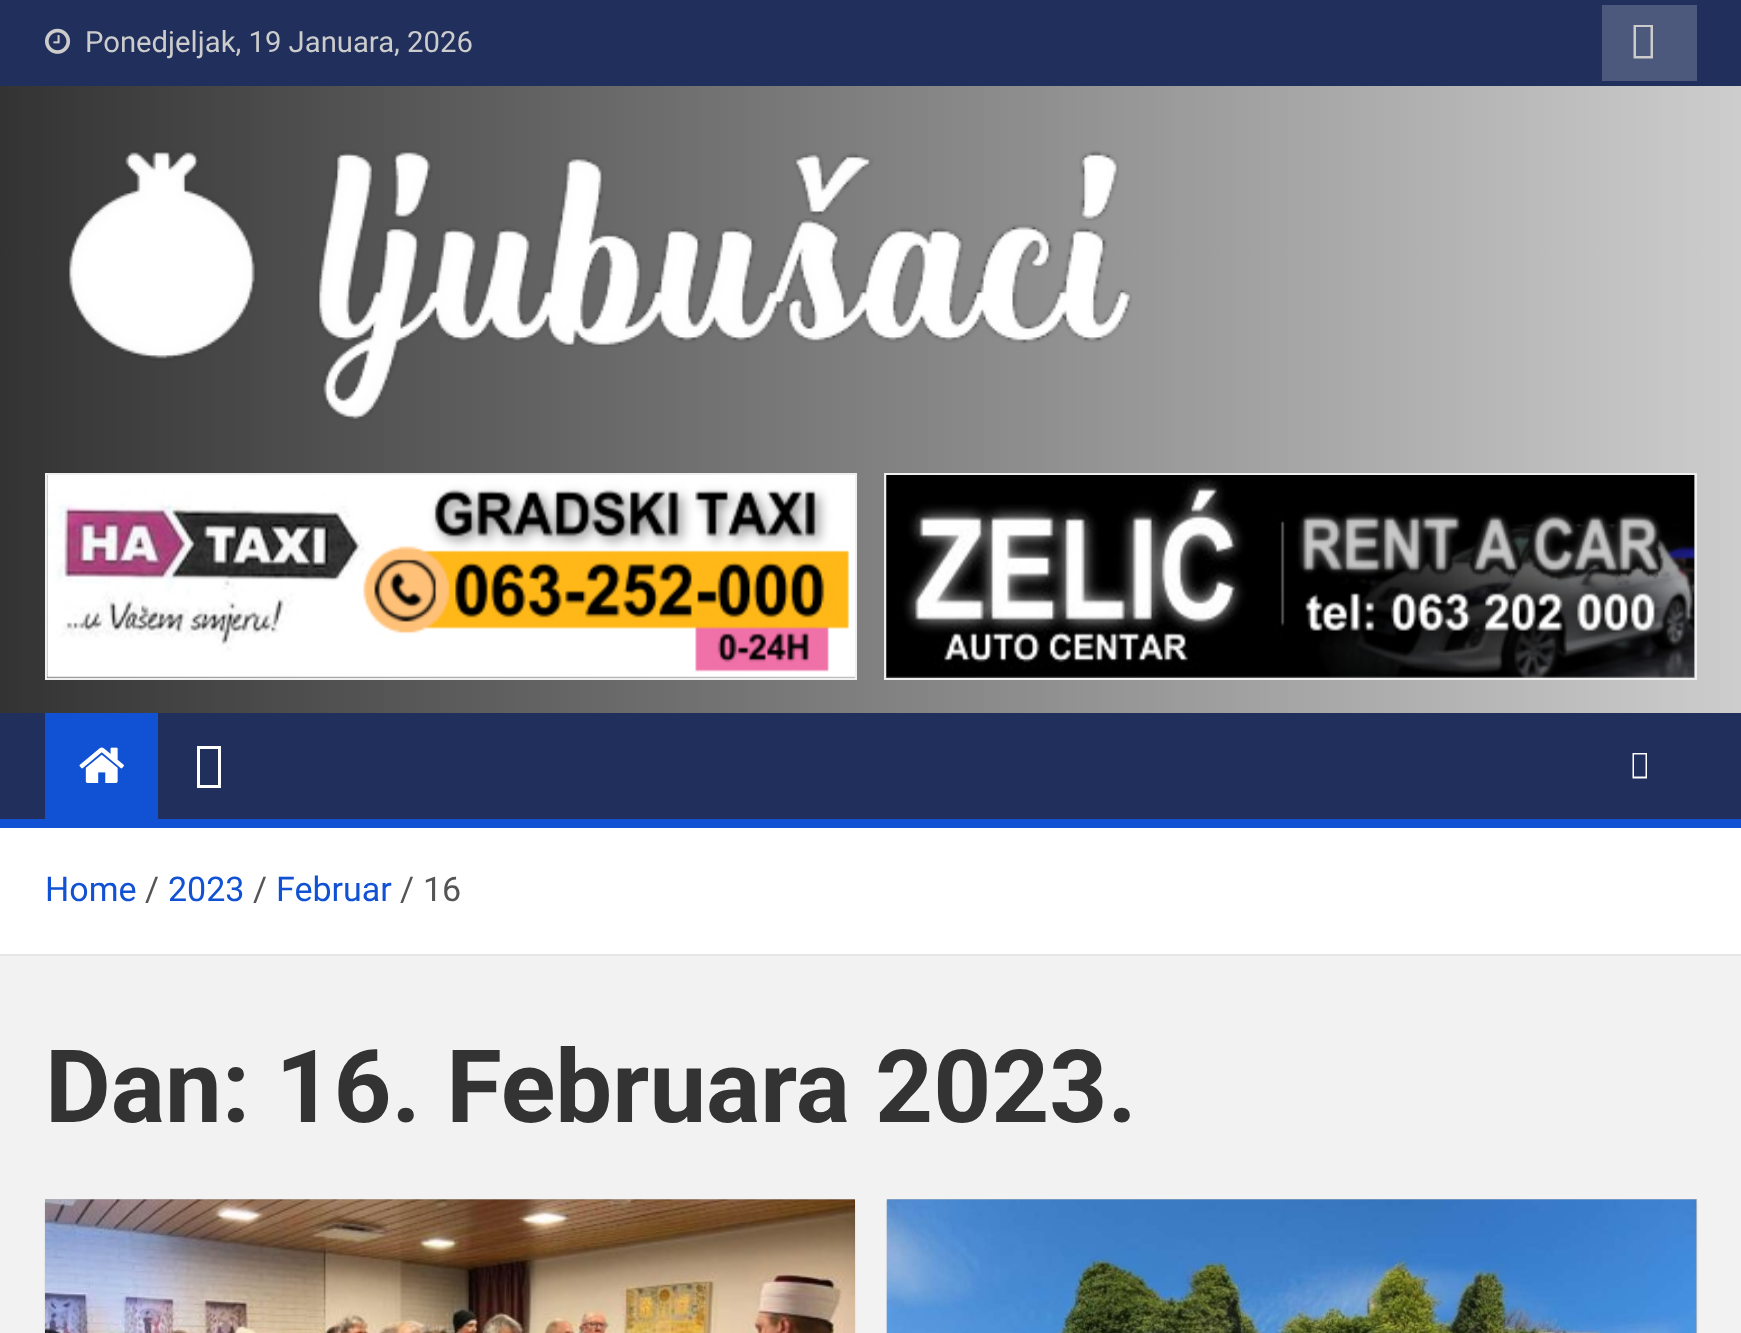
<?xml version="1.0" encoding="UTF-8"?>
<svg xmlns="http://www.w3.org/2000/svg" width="1741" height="1333">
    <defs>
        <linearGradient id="g1" gradientUnits="userSpaceOnUse" x1="0" y1="399" x2="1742" y2="399"><stop offset="0" stop-color="#333333"/><stop offset="1" stop-color="#CDCDCD"/></linearGradient>
        <filter id="blur1" x="-50%" y="-200%" width="200%" height="500%"><feGaussianBlur stdDeviation="1"/></filter>
    </defs>
    <rect width="100%" height="100%" fill="#F2F2F2"/>
    <rect x="0" y="0" width="1741" height="86" fill="#202F5B"/>
    <image x="45" y="28" width="26" height="26" href="img_01.png"/>
    <text x="85" y="52" font-family="Roboto" font-size="29.25" fill="#CCCCCC">Ponedjeljak, 19 Januara, 2026</text>
    <rect x="1602" y="5" width="95" height="76" fill="#4D597C"/>
    <path d="M 1633.5 58.5 V 25 H 1653 V 58.5 Z M 1636 56 H 1650.5 V 27 H 1636 Z" fill="#CCCCCC"/>
    <rect x="0" y="86" width="1741" height="627" fill="url(#g1)"/>
    <image x="69" y="150" width="1063" height="271" href="img_02.png"/>
    <rect x="46" y="474" width="810" height="205" fill="none" stroke="#EFEFEF" stroke-width="2"/>
    <image x="47" y="475" width="808" height="203" href="img_03.png"/>
    <rect x="885" y="474" width="811" height="205" fill="none" stroke="#EFEFEF" stroke-width="2"/>
    <image x="886" y="475" width="809" height="203" href="img_04.png"/>
    <rect x="0" y="713" width="1741" height="106" fill="#202F5B"/>
    <rect x="45" y="713" width="113" height="106" fill="#1151D3"/>
    <image x="79" y="747" width="45" height="36" href="img_05.png"/>
    <path d="M 197 788 V 746 H 221 V 788 Z M 200 785 H 218 V 749 H 200 Z" fill="#FFFFFF"/>
    <path d="M 1632.5 778.5 V 753 H 1647 V 778.5 Z M 1634 776.5 H 1645.5 V 754.5 H 1634 Z" fill="#FFFFFF"/>
    <rect x="0" y="819" width="1741" height="9" fill="#1151D3"/>
    <rect x="0" y="828" width="1741" height="126" fill="#FFFFFF"/>
    <rect x="0" y="954" width="1741" height="2" fill="#E6E6E6"/>
    <text x="45" y="901" font-family="Roboto" font-size="34" fill="#1151D3">Home</text>
    <text x="145" y="901" font-family="Roboto" font-size="34" fill="#555555">/</text>
    <text x="168" y="901" font-family="Roboto" font-size="34" fill="#1151D3">2023</text>
    <text x="253" y="901" font-family="Roboto" font-size="34" fill="#555555">/</text>
    <text x="276" y="901" font-family="Roboto" font-size="34" fill="#1151D3">Februar</text>
    <text x="400" y="901" font-family="Roboto" font-size="34" fill="#555555">/</text>
    <text x="423" y="901" font-family="Roboto" font-size="34" fill="#555555">16</text>
    <text x="45" y="1122" font-family="Roboto" font-size="101.25" font-weight="700" fill="#333333">Dan: 16. Februara 2023.</text>
    <rect x="45" y="1202" width="810" height="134" fill="#000000" fill-opacity="0.1" filter="url(#blur1)"/>
    <rect x="45" y="1199" width="810" height="1" fill="#BBBBBB"/>
    <image x="45" y="1199" width="810" height="134" href="img_06.png"/>
    <rect x="887" y="1202" width="810" height="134" fill="#000000" fill-opacity="0.1" filter="url(#blur1)"/>
    <rect x="887" y="1199" width="810" height="134" fill="#BBBBBB"/>
    <image x="886" y="1199" width="811" height="134" href="img_07.png"/>
</svg>
